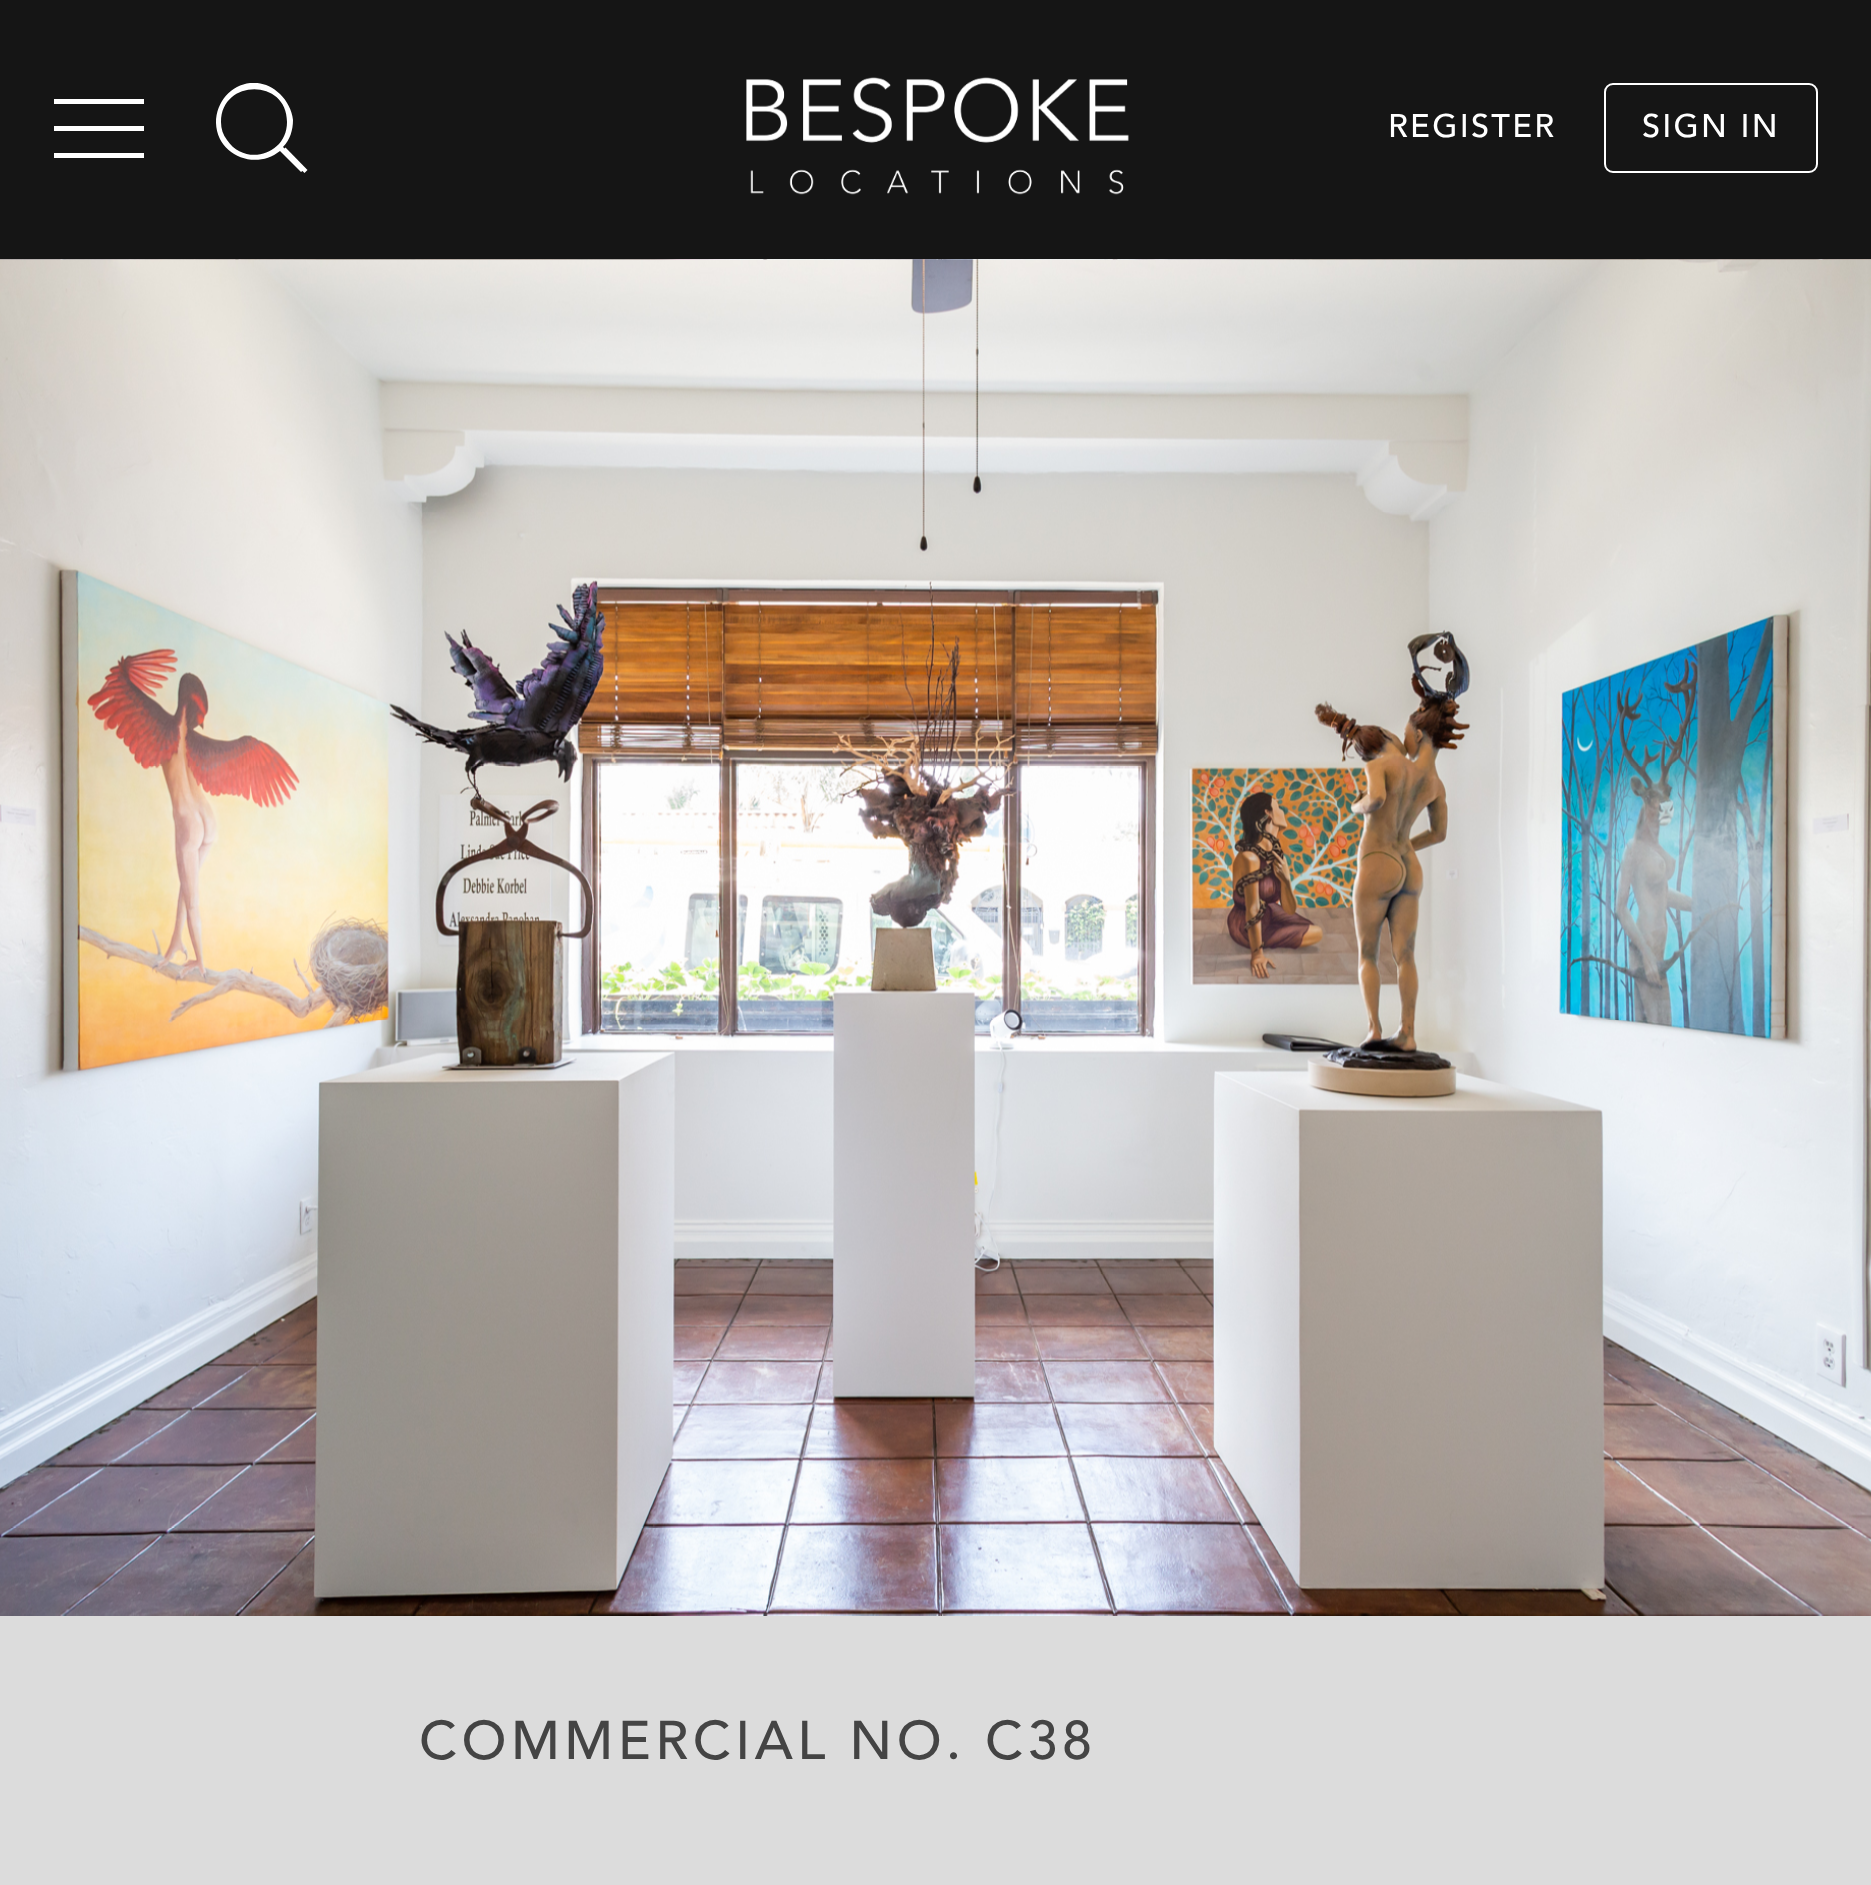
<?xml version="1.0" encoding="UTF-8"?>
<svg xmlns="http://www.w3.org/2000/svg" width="1871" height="1885">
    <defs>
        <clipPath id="clip1"><rect x="216" y="83" width="90" height="90"/></clipPath>
    </defs>
    <rect width="100%" height="100%" fill="#FFFFFF"/>
    <rect x="0" y="0" width="1871" height="259" fill="#151515"/>
    <rect x="54" y="126" width="90" height="5" fill="#FFFFFF"/>
    <rect x="54" y="99" width="90" height="5" fill="#FFFFFF"/>
    <rect x="54" y="153" width="90" height="5" fill="#FFFFFF"/>
    <g clip-path="url(#clip1)">
        <path d="M 216 123 C 216 89 254 69 280 94 C 287 101 292 110 293 120 C 293 130 290 140 283 147 L 305 169 L 301 172 L 280 151 C 255 171 217 155 216 123 Z M 221 122 C 221 129 223 135 227 140 C 245 167 287 155 287 122 C 287 78 221 79 221 122 Z" fill="#FFFFFF" fill-rule="evenodd"/>
    </g>
    <path d="M 285.5 147.5 L 307.5 170 L 304.5 173 L 282 151 Z" fill="#FFFFFF"/>
    <image x="746" y="77" width="383" height="118" href="img_01.png"/>
    <text x="1388" y="137" font-family="'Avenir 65'" font-size="32.5" font-weight="500" letter-spacing="2.25" fill="#FFFFFF">REGISTER</text>
    <rect x="1605" y="84" width="212" height="88" rx="8" fill="none" stroke="#FFFFFF" stroke-width="2"/>
    <text x="1642" y="137" font-family="'Avenir 65'" font-size="32.5" font-weight="500" letter-spacing="2.25" fill="#FFFFFF">SIGN IN</text>
    <image x="0" y="259" width="1871" height="1357" href="img_02.png"/>
    <image x="0" y="259" width="1871" height="1" href="img_03.png"/>
    <rect x="0" y="1616" width="1871" height="269" fill="#DCDCDC"/>
    <text x="419" y="1759" font-family="'Avenir 65'" font-size="54" font-weight="500" letter-spacing="4.5" fill="#444444">COMMERCIAL NO. C38</text>
</svg>
